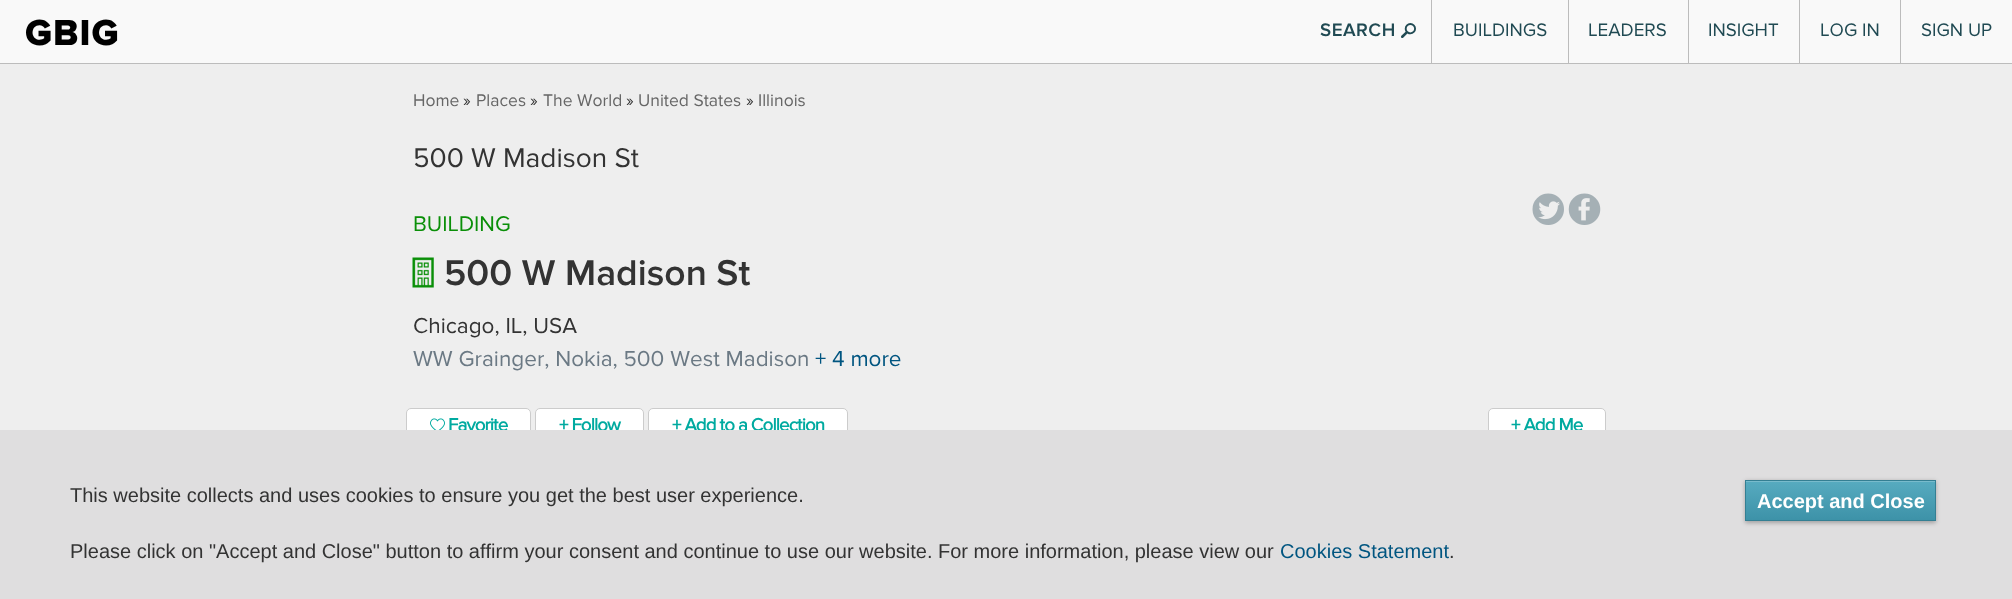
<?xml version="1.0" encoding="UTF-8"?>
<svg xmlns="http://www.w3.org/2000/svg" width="2012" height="599">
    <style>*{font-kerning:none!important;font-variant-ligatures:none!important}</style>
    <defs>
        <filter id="blur1" x="-50%" y="-200%" width="200%" height="500%"><feGaussianBlur stdDeviation="2"/></filter>
        <linearGradient id="g1" gradientUnits="userSpaceOnUse" x1="1746" y1="481" x2="1746" y2="520"><stop offset="0" stop-color="#57ABC0"/><stop offset="1" stop-color="#3D92A8"/></linearGradient>
    </defs>
    <rect width="100%" height="100%" fill="#EEEEEE"/>
    <rect x="0" y="0" width="2012" height="63" fill="#F9F9F9"/>
    <rect x="0" y="63" width="2012" height="1" fill="#BCBCBC"/>
    <text x="25" y="45" font-family="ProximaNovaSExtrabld" font-size="37.5" font-weight="800" letter-spacing="1" fill="#000000">GBIG</text>
    <text x="1320" y="36" font-family="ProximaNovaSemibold" font-size="18.75" font-weight="600" letter-spacing="0.5" fill="#204A53">SEARCH</text>
    <text x="1401" y="38" font-family="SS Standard" font-size="15" letter-spacing="0.5" fill="#204A53">🔎</text>
    <rect x="1431" y="0" width="1" height="63" fill="#BCBCBC"/>
    <text x="1453" y="36" font-family="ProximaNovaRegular" font-size="18.75" fill="#204A53">BUILDINGS</text>
    <rect x="1568" y="0" width="1" height="63" fill="#BCBCBC"/>
    <text x="1588" y="36" font-family="ProximaNovaRegular" font-size="18.75" fill="#204A53">LEADERS</text>
    <rect x="1688" y="0" width="1" height="63" fill="#BCBCBC"/>
    <text x="1708" y="36" font-family="ProximaNovaRegular" font-size="18.75" fill="#204A53">INSIGHT</text>
    <rect x="1799" y="0" width="1" height="63" fill="#BCBCBC"/>
    <text x="1820" y="36" font-family="ProximaNovaRegular" font-size="18.75" fill="#204A53">LOG IN</text>
    <rect x="1900" y="0" width="1" height="63" fill="#BCBCBC"/>
    <text x="1921" y="36" font-family="ProximaNovaRegular" font-size="18.75" fill="#204A53">SIGN UP</text>
    <text x="413" y="106" font-family="ProximaNovaRegular" font-size="17.5" fill="#666666">Home</text>
    <text x="463" y="106" font-family="ProximaNovaRegular" font-size="17.5" fill="#333333">»</text>
    <text x="476" y="106" font-family="ProximaNovaRegular" font-size="17.5" fill="#666666">Places</text>
    <text x="530" y="106" font-family="ProximaNovaRegular" font-size="17.5" fill="#333333">»</text>
    <text x="543" y="106" font-family="ProximaNovaRegular" font-size="17.5" fill="#666666">The World</text>
    <text x="626" y="106" font-family="ProximaNovaRegular" font-size="17.5" fill="#333333">»</text>
    <text x="638" y="106" font-family="ProximaNovaRegular" font-size="17.5" fill="#666666">United States</text>
    <text x="746" y="106" font-family="ProximaNovaRegular" font-size="17.5" fill="#333333">»</text>
    <text x="758" y="106" font-family="ProximaNovaRegular" font-size="17.5" fill="#666666">Illinois</text>
    <text x="413" y="167" font-family="ProximaNovaRegular" font-size="28" fill="#333333">500 W Madison St</text>
    <text x="413" y="231" font-family="ProximaNovaRegular" font-size="22" fill="#0A8F08">BUILDING</text>
    <image x="1532" y="193" width="32" height="32" href="img_01.png"/>
    <image x="1568" y="193" width="33" height="32" href="img_02.png"/>
    <image x="412" y="257" width="22" height="31" href="img_03.png"/>
    <text x="444" y="285" font-family="ProximaNovaSemibold" font-size="37.25" font-weight="600" fill="#333333">500 W Madison St</text>
    <text x="413" y="333" font-family="ProximaNovaRegular" font-size="22.5" fill="#333333">Chicago, IL, USA</text>
    <text x="413" y="366" font-family="ProximaNovaRegular" font-size="22.5" fill="#6B7984">WW Grainger, Nokia, 500 West Madison</text>
    <text x="815" y="366" font-family="ProximaNovaRegular" font-size="22.5" fill="#005580">+ 4 more</text>
    <rect x="406.5" y="408.5" width="124" height="35" rx="4.5" fill="#FFFFFF" stroke="#CCCCCC"/>
    <image x="430" y="418" width="15" height="12" href="img_04.png"/>
    <text x="448" y="431" font-family="ProximaNovaRegular" font-size="18.75" font-weight="700" letter-spacing="-0.9" fill="#00AAA0">Favorite</text>
    <rect x="535.5" y="408.5" width="108" height="35" rx="4.5" fill="#FFFFFF" stroke="#CCCCCC"/>
    <text x="559" y="431" font-family="ProximaNovaRegular" font-size="18.75" font-weight="700" letter-spacing="-0.9" fill="#00AAA0">+ Follow</text>
    <rect x="648.5" y="408.5" width="199" height="35" rx="4.5" fill="#FFFFFF" stroke="#CCCCCC"/>
    <text x="672" y="431" font-family="ProximaNovaRegular" font-size="18.75" font-weight="700" letter-spacing="-0.9" fill="#00AAA0">+ Add to a Collection</text>
    <rect x="1488.5" y="408.5" width="117" height="35" rx="4.5" fill="#FFFFFF" stroke="#CCCCCC"/>
    <text x="1511" y="431" font-family="ProximaNovaRegular" font-size="18.75" font-weight="700" letter-spacing="-0.9" fill="#00AAA0">+ Add Me</text>
    <rect x="0" y="430" width="2012" height="169" fill="#DFDEDF"/>
    <text x="70" y="502" font-family="Liberation Sans" font-size="20" fill="#333333">This website collects and uses cookies to ensure you get the best user experience.</text>
    <text x="70" y="558" font-family="Liberation Sans" font-size="20" fill="#333333">Please click on "Accept and Close" button to affirm your consent and continue to use our website. For more information, please view our</text>
    <text x="1280" y="558" font-family="Liberation Sans" font-size="20" fill="#005580">Cookies Statement</text>
    <text x="1449" y="558" font-family="Liberation Sans" font-size="20" fill="#333333">.</text>
    <rect x="1745" y="481" width="191" height="42" fill="#000000" fill-opacity="0.28" filter="url(#blur1)"/>
    <rect x="1746" y="482" width="189" height="38" fill="url(#g1)"/>
    <rect x="1746" y="481" width="189" height="1" fill="#78BBCC"/>
    <rect x="1745.5" y="480.5" width="190" height="40" fill="none" stroke="#347F93"/>
    <text x="1757" y="508" font-family="Liberation Sans" font-size="20" font-weight="700" fill="#FFFFFF">Accept and Close</text>
</svg>
